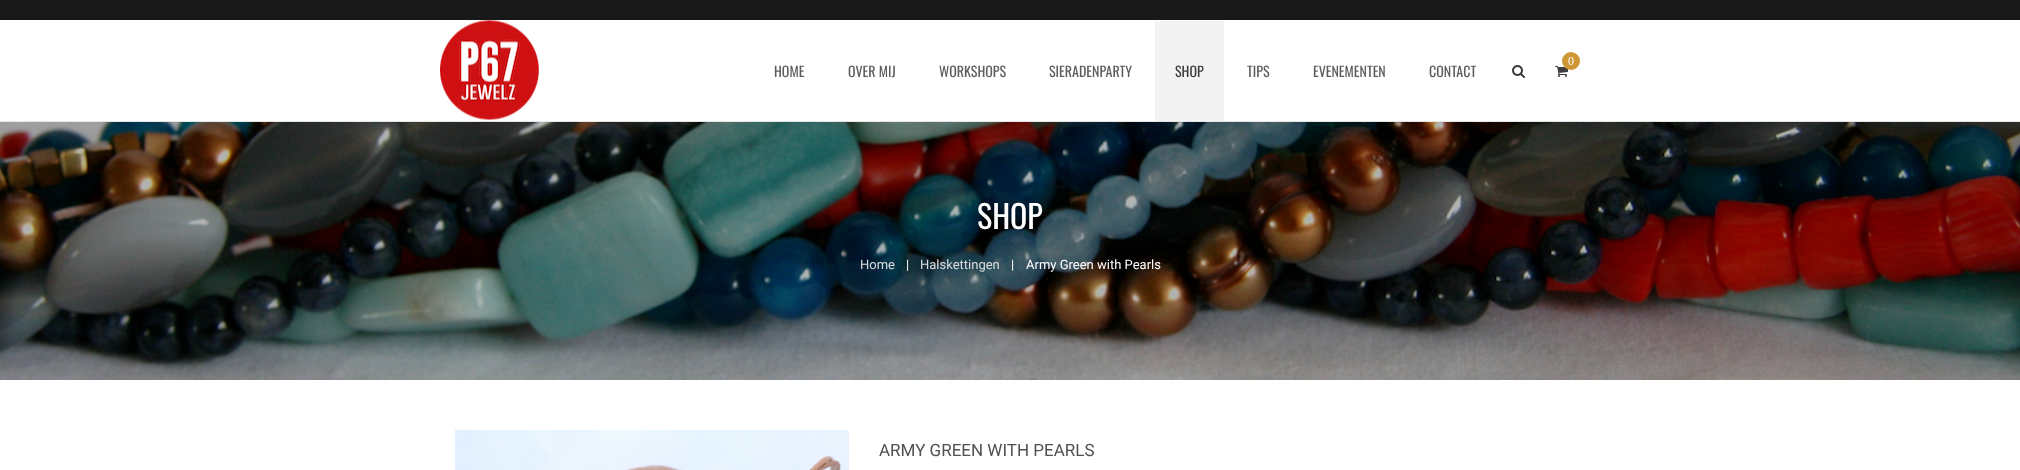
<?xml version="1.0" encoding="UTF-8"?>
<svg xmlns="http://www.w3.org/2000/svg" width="2020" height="470">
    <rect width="100%" height="100%" fill="#FFFFFF"/>
    <rect x="0" y="0" width="2020" height="20" fill="#181818"/>
    <rect x="0" y="121" width="2020" height="1" fill="#E6E6E6"/>
    <image x="440" y="20" width="100" height="100" href="img_01.png"/>
    <image x="1555" y="66" width="13" height="11" href="img_02.png"/>
    <circle cx="1571" cy="61" r="9" fill="#CE9634"/>
    <text x="1568" y="65" font-family="Liberation Serif" font-size="12" fill="#FFFFFF">0</text>
    <image x="1512" y="65" width="13" height="13" href="img_03.png"/>
    <text x="774" y="77" font-family="Oswald" font-size="14" fill="#5D5D5D">HOME</text>
    <text x="848" y="77" font-family="Oswald" font-size="14" fill="#5D5D5D">OVER MIJ</text>
    <text x="939" y="77" font-family="Oswald" font-size="14" fill="#5D5D5D">WORKSHOPS</text>
    <text x="1049" y="77" font-family="Oswald" font-size="14" fill="#5D5D5D">SIERADENPARTY</text>
    <rect x="1155" y="21" width="69" height="100" fill="#F3F3F3"/>
    <text x="1175" y="77" font-family="Oswald" font-size="14" fill="#3D3D3D">SHOP</text>
    <text x="1247" y="77" font-family="Oswald" font-size="14" fill="#5D5D5D">TIPS</text>
    <text x="1313" y="77" font-family="Oswald" font-size="14" fill="#5D5D5D">EVENEMENTEN</text>
    <text x="1429" y="77" font-family="Oswald" font-size="14" fill="#5D5D5D">CONTACT</text>
    <image x="0" y="122" width="2020" height="258" href="img_04.png"/>
    <text x="977" y="229" font-family="Oswald" font-size="32" fill="#FFFFFF">SHOP</text>
    <text x="860" y="269" font-family="Roboto" font-size="13" fill="#DEDEDE">Home</text>
    <text x="906" y="269" font-family="Roboto" font-size="13" fill="#FFFFFF">|</text>
    <text x="920" y="269" font-family="Roboto" font-size="13" fill="#DEDEDE">Halskettingen</text>
    <text x="1011" y="269" font-family="Roboto" font-size="13" fill="#FFFFFF">|</text>
    <text x="1026" y="269" font-family="Roboto" font-size="13" fill="#FFFFFF">Army Green with Pearls</text>
    <image x="455" y="430" width="394" height="40" href="img_05.png"/>
    <text x="879" y="456" font-family="Roboto" font-size="17" fill="#515151">ARMY GREEN WITH PEARLS</text>
</svg>
